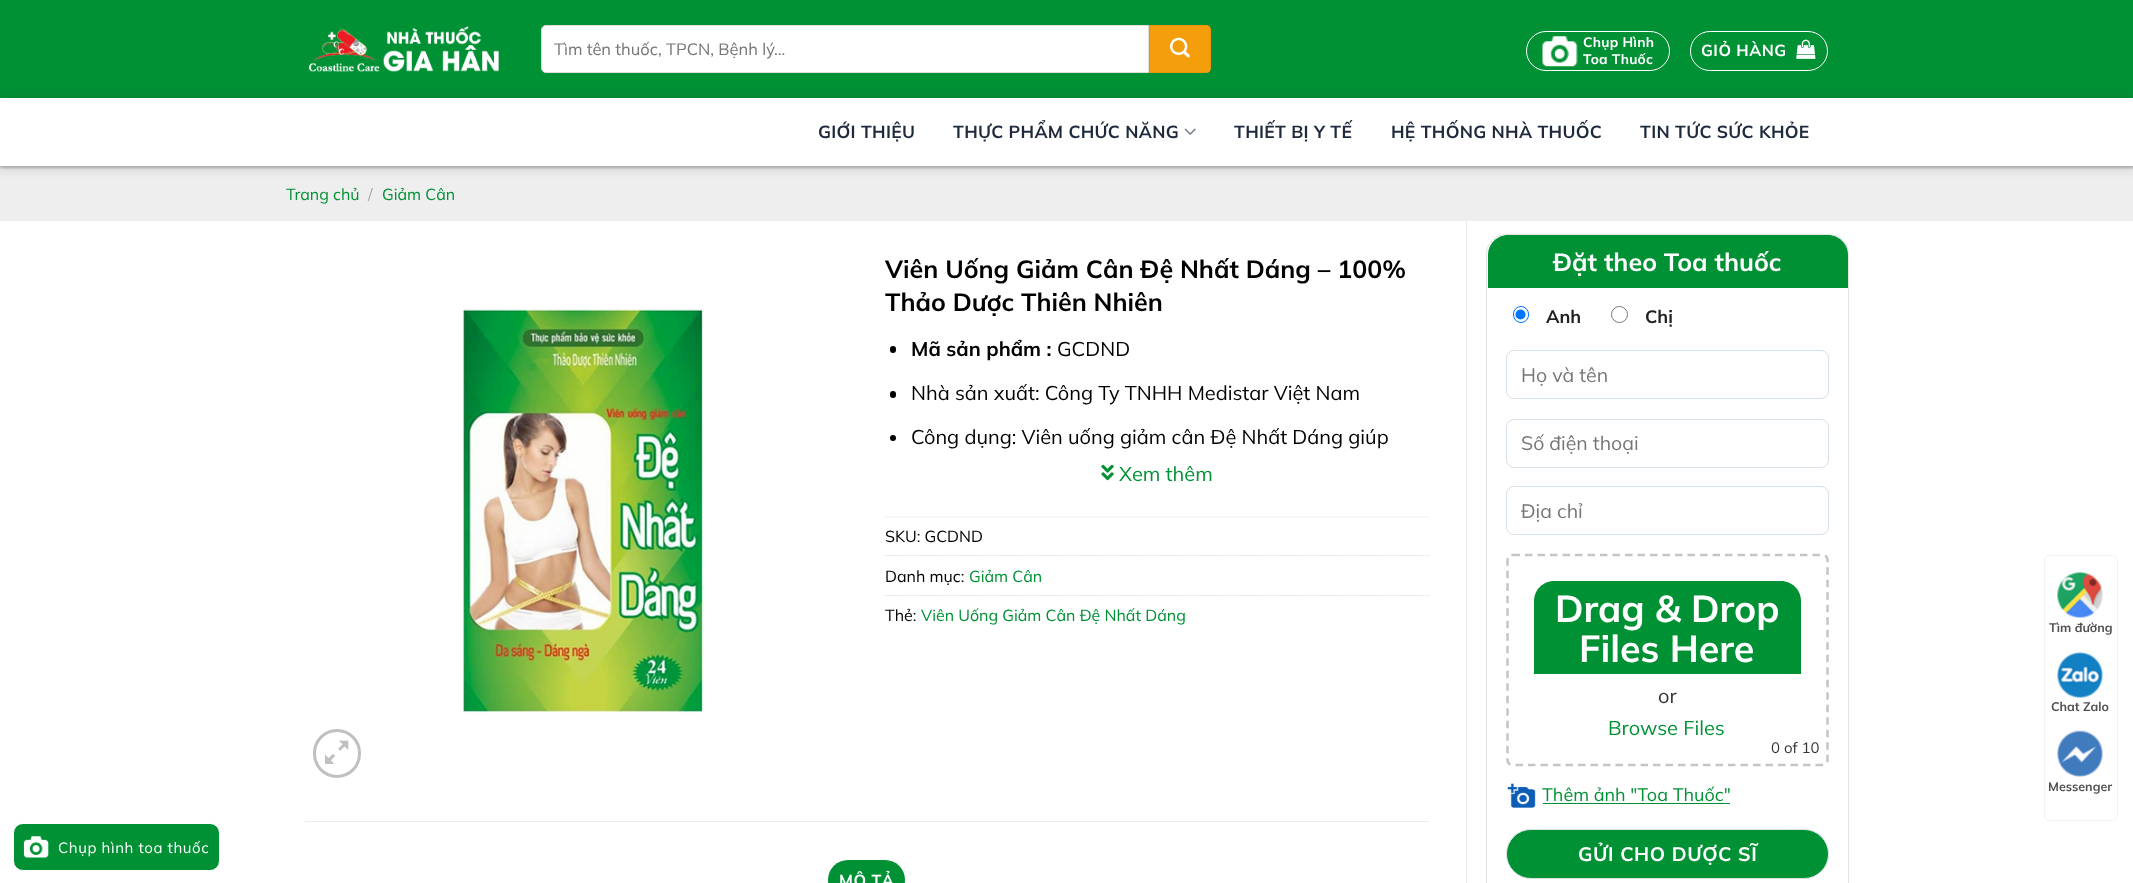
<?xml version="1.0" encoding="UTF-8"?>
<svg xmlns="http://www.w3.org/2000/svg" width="2133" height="883">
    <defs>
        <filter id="blur1" x="-50%" y="-200%" width="200%" height="500%"><feGaussianBlur stdDeviation="4"/></filter>
        <filter id="blur2" x="-50%" y="-200%" width="200%" height="500%"><feGaussianBlur stdDeviation="1"/></filter>
    </defs>
    <rect width="100%" height="100%" fill="#FFFFFF"/>
    <rect x="0" y="0" width="2133" height="98" fill="#009134"/>
    <image x="309" y="26" width="190" height="46" href="img_01.png"/>
    <path d="M 546 25.5 H 1148.5 V 72.5 H 546 C 543.5 72.5 541.5 70.5 541.5 68 V 30 C 541.5 27.5 543.5 25.5 546 25.5 Z" fill="#FFFFFF" stroke="#DDDDDD"/>
    <text x="554" y="55" font-family="Mulish" font-size="16.5" fill="#757575">Tìm tên thuốc, TPCN, Bệnh lý...</text>
    <path d="M 1149 25 H 1206 C 1209 25 1211 27 1211 30 V 68 C 1211 71 1209 73 1206 73 H 1149 Z" fill="#F59E0B"/>
    <rect x="1149.5" y="25.5" width="61" height="47" fill="none" stroke="#000000" stroke-opacity="0.05"/>
    <image x="1170" y="37" width="20" height="21" href="img_02.png"/>
    <rect x="1526.5" y="31.5" width="143" height="39" rx="19.5" fill="none" stroke="#FFFFFF"/>
    <image x="1542" y="36" width="36" height="31" href="img_03.png"/>
    <text font-family="Mulish" font-size="13.75" font-weight="700" letter-spacing="0.25" fill="#FFFFFF">
        <tspan x="1583" y="47">Chụp Hình</tspan>
        <tspan x="1583" y="64">Toa Thuốc</tspan>
    </text>
    <rect x="1690.5" y="31.5" width="137" height="39" rx="19.5" fill="none" stroke="#FFFFFF"/>
    <text x="1701" y="56" font-family="Mulish" font-size="16" font-weight="700" letter-spacing="0.5" fill="#FFFFFF">GIỎ HÀNG</text>
    <image x="1796" y="39" width="20" height="20" href="img_04.png"/>
    <rect x="0" y="166" width="2133" height="55" fill="#EEEEEE"/>
    <rect x="-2" y="96" width="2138" height="74" fill="#3C4043" fill-opacity="0.15" filter="url(#blur1)"/>
    <rect x="0" y="99" width="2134" height="69" fill="#3C4043" fill-opacity="0.3" filter="url(#blur2)"/>
    <rect x="0" y="98" width="2133" height="68" fill="#FFFFFF"/>
    <text x="818" y="138" font-family="Mulish" font-size="17.5" font-weight="700" letter-spacing="0.3" fill="#1E293B">GIỚI THIỆU</text>
    <text x="953" y="138" font-family="Mulish" font-size="17.5" font-weight="700" letter-spacing="0.3" fill="#1E293B">THỰC PHẨM CHỨC NĂNG</text>
    <image x="1184" y="128" width="12" height="7" href="img_05.png"/>
    <text x="1234" y="138" font-family="Mulish" font-size="17.5" font-weight="700" letter-spacing="0.3" fill="#1E293B">THIẾT BỊ Y TẾ</text>
    <text x="1391" y="138" font-family="Mulish" font-size="17.5" font-weight="700" letter-spacing="0.3" fill="#1E293B">HỆ THỐNG NHÀ THUỐC</text>
    <text x="1640" y="138" font-family="Mulish" font-size="17.5" font-weight="700" letter-spacing="0.3" fill="#1E293B">TIN TỨC SỨC KHỎE</text>
    <text x="286" y="200" font-family="Mulish" font-size="16" fill="#009134">Trang chủ</text>
    <text x="368" y="200" font-family="Mulish" font-size="16" fill="#A7A7A7">/</text>
    <text x="382" y="200" font-family="Mulish" font-size="16" fill="#009134">Giảm Cân</text>
    <rect x="1466" y="221" width="1" height="662" fill="#ECECEC"/>
    <image x="463" y="309" width="240" height="404" href="img_06.png"/>
    <rect x="314.5" y="730.5" width="45" height="46" rx="22.5" fill="none" stroke="#C0C0C0" stroke-width="3"/>
    <image x="325" y="740" width="24" height="24" href="img_07.png"/>
    <text font-family="Mulish" font-size="25" font-weight="700" fill="#000000">
        <tspan x="885" y="278">Viên Uống Giảm Cân Đệ Nhất Dáng – 100%</tspan>
        <tspan x="885" y="311">Thảo Dược Thiên Nhiên</tspan>
    </text>
    <rect x="890" y="346" width="6" height="7" rx="3" fill="#000000"/>
    <text x="911" y="356" font-family="Mulish" font-size="20" font-weight="700" fill="#000000">Mã sản phẩm :</text>
    <text x="1057" y="356" font-family="Mulish" font-size="20" fill="#000000">GCDND</text>
    <rect x="890" y="391" width="6" height="7" rx="3" fill="#000000"/>
    <text x="911" y="400" font-family="Mulish" font-size="20" fill="#000000">Nhà sản xuất: Công Ty TNHH Medistar Việt Nam</text>
    <circle cx="893" cy="438" r="3" fill="#000000"/>
    <text x="911" y="444" font-family="Mulish" font-size="20" fill="#000000">Công dụng: Viên uống giảm cân Đệ Nhất Dáng giúp</text>
    <image x="1101" y="464" width="13" height="17" href="img_08.png"/>
    <text x="1119" y="481" font-family="Mulish" font-size="20" fill="#009134">Xem thêm</text>
    <path d="M 885 517 H 1429" fill="none" stroke="#DDDDDD" stroke-width="1.2" stroke-dasharray="1.25 1.25"/>
    <text x="885" y="542" font-family="Mulish" font-size="16" fill="#000000">SKU: GCDND</text>
    <path d="M 885 555.5 H 1429" fill="none" stroke="#DDDDDD" stroke-width="1.2" stroke-dasharray="1.25 1.25"/>
    <text x="885" y="582" font-family="Mulish" font-size="16" fill="#000000">Danh mục:</text>
    <text x="969" y="582" font-family="Mulish" font-size="16" fill="#009134">Giảm Cân</text>
    <path d="M 885 595.5 H 1429" fill="none" stroke="#DDDDDD" stroke-width="1.2" stroke-dasharray="1.25 1.25"/>
    <text x="885" y="621" font-family="Mulish" font-size="16" fill="#000000">Thẻ:</text>
    <text x="921" y="621" font-family="Mulish" font-size="16" fill="#009134">Viên Uống Giảm Cân Đệ Nhất Dáng</text>
    <rect x="305" y="821" width="1124" height="1" fill="#ECECEC"/>
    <rect x="828" y="860" width="77" height="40" rx="20" fill="#009134"/>
    <text x="839" y="886" font-family="Mulish" font-size="16" font-weight="700" letter-spacing="0.5" fill="#FFFFFF">MÔ TẢ</text>
    <rect x="1486.5" y="234.5" width="362" height="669" rx="19.5" fill="none" stroke="#E3E3E3"/>
    <path d="M 1508 235 H 1828 C 1839 235 1848 244 1848 255 V 288 H 1488 V 255 C 1488 244 1497 235 1508 235 Z" fill="#009134"/>
    <text x="1553" y="271" font-family="Mulish" font-size="25" font-weight="700" fill="#FFFFFF">Đặt theo Toa thuốc</text>
    <rect x="1513.5" y="306.5" width="15" height="16" rx="7.5" fill="none" stroke="#0075FF"/>
    <circle cx="1520.5" cy="314.5" r="5" fill="#0075FF"/>
    <text x="1546" y="323" font-family="Mulish" font-size="18" font-weight="700" fill="#222222">Anh</text>
    <circle cx="1619.5" cy="314.5" r="8" fill="none" stroke="#767676"/>
    <text x="1645" y="323" font-family="Mulish" font-size="18" font-weight="700" fill="#222222">Chị</text>
    <rect x="1506.5" y="350.5" width="322" height="48" rx="7.5" fill="none" stroke="#D8E0E8"/>
    <text x="1521" y="382" font-family="Mulish" font-size="19.5" fill="#757575">Họ và tên</text>
    <rect x="1506.5" y="419.5" width="322" height="48" rx="7.5" fill="none" stroke="#D8E0E8"/>
    <text x="1521" y="450" font-family="Mulish" font-size="19.5" fill="#757575">Số điện thoại</text>
    <rect x="1506.5" y="486.5" width="322" height="48" rx="7.5" fill="none" stroke="#D8E0E8"/>
    <text x="1521" y="518" font-family="Mulish" font-size="19.5" fill="#757575">Địa chỉ</text>
    <path d="M 1512.5 555 H 1822.5 C 1825.5 555 1827.5 557 1827.5 560 V 760 C 1827.5 763 1825.5 765 1822.5 765 H 1512.5 C 1509.5 765 1507.5 763 1507.5 760 V 560 C 1507.5 557 1509.5 555 1512.5 555 Z" fill="none" stroke="#C5C5C5" stroke-width="2.5" stroke-dasharray="7.5 5"/>
    <path d="M 1554 581 H 1781 C 1792 581 1801 590 1801 601 V 674 H 1534 V 601 C 1534 590 1543 581 1554 581 Z" fill="#009134"/>
    <text x="1555" y="622" font-family="Mulish" font-size="37.5" font-weight="700" fill="#FFFFFF">Drag &amp; Drop</text>
    <text x="1579" y="662" font-family="Mulish" font-size="37.5" font-weight="700" fill="#FFFFFF">Files Here</text>
    <text x="1658" y="703" font-family="Mulish" font-size="20" fill="#333333">or</text>
    <text x="1608" y="735" font-family="Mulish" font-size="20" fill="#009134">Browse Files</text>
    <text x="1771" y="753" font-family="Mulish" font-size="15" fill="#333333">0 of 10</text>
    <image x="1507" y="783" width="29" height="25" href="img_09.png"/>
    <text x="1542" y="801" font-family="Mulish" font-size="18" fill="#009134">Thêm ảnh "Toa Thuốc"</text>
    <rect x="1543" y="803" width="187" height="1" fill="#009134"/>
    <rect x="1506.5" y="829.5" width="322" height="49" rx="24.5" fill="#009134" stroke="#D8E0E8"/>
    <text x="1578" y="861" font-family="Mulish" font-size="19.5" font-weight="700" letter-spacing="0.6" fill="#FFFFFF">GỬI CHO DƯỢC SĨ</text>
    <rect x="2044.5" y="555.5" width="73" height="265" rx="5.5" fill="none" stroke="#F2F2F2"/>
    <image x="2057" y="572" width="46" height="46" href="img_10.png"/>
    <text x="2049" y="632" font-family="Mulish" font-size="12.5" font-weight="700" fill="#515151">Tìm đường</text>
    <image x="2057" y="652" width="46" height="46" href="img_11.png"/>
    <text x="2051" y="711" font-family="Mulish" font-size="12.5" font-weight="700" fill="#515151">Chat Zalo</text>
    <image x="2057" y="730" width="46" height="47" href="img_12.png"/>
    <text x="2048" y="791" font-family="Mulish" font-size="12.5" font-weight="700" fill="#515151">Messenger</text>
    <rect x="13.5" y="823.5" width="206" height="47" rx="9.5" fill="#009134" stroke="#FFFFFF"/>
    <image x="23" y="836" width="26" height="22" href="img_13.png"/>
    <text x="58" y="853" font-family="Mulish" font-size="15" letter-spacing="0.6" fill="#FFFFFF">Chụp hình toa thuốc</text>
</svg>
